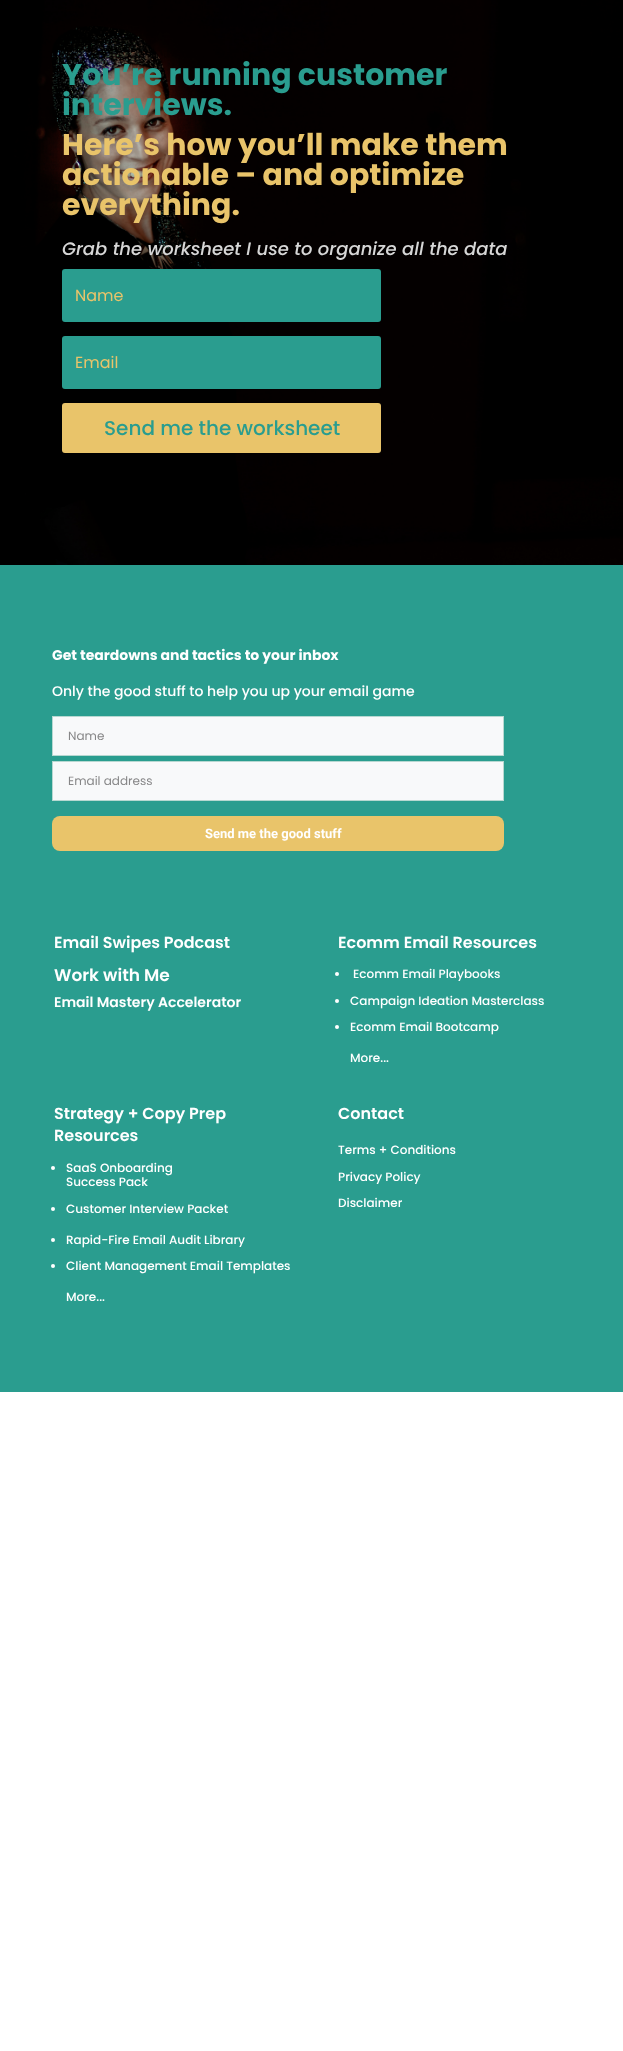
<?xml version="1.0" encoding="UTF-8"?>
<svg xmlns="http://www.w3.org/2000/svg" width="623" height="2051">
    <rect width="100%" height="100%" fill="#FFFFFF"/>
    <image x="0" y="0" width="623" height="565" href="img_01.png"/>
    <text font-family="Poppins" font-size="30" font-weight="700" fill="#2A9D8F">
        <tspan x="62" y="85">You’re running customer</tspan>
        <tspan x="62" y="115">interviews.</tspan>
    </text>
    <text font-family="Poppins" font-size="30" font-weight="700" fill="#E9C46A">
        <tspan x="62" y="155">Here’s how you’ll make them</tspan>
        <tspan x="62" y="185">actionable – and optimize</tspan>
        <tspan x="62" y="215">everything.</tspan>
    </text>
    <text x="62" y="255" font-family="Poppins" font-size="18" font-weight="500" font-style="italic" fill="#D6D6D6">Grab the worksheet I use to organize all the data</text>
    <rect x="62" y="269" width="319" height="53" rx="3" fill="#2A9D8F"/>
    <text x="75" y="301" font-family="Poppins" font-size="16" fill="#E9C46A">Name</text>
    <rect x="62" y="336" width="319" height="53" rx="3" fill="#2A9D8F"/>
    <text x="75" y="368" font-family="Poppins" font-size="16" fill="#E9C46A">Email</text>
    <rect x="62" y="403" width="319" height="50" rx="3" fill="#E9C46A"/>
    <text x="104" y="435" font-family="Poppins" font-size="20" font-weight="500" fill="#2A9D8F">Send me the worksheet</text>
    <rect x="0" y="565" width="623" height="827" fill="#2A9D8F"/>
    <text x="52" y="660" font-family="Poppins" font-size="14" font-weight="700" fill="#FFFFFF">Get teardowns and tactics to your inbox</text>
    <text x="52" y="696" font-family="Poppins" font-size="14" font-weight="500" fill="#FFFFFF">Only the good stuff to help you up your email game</text>
    <rect x="52.5" y="716.5" width="451" height="39" fill="#F8F9FA" stroke="#B7D8D1"/>
    <text x="68" y="740" font-family="Poppins" font-size="12" fill="#868687">Name</text>
    <rect x="52.5" y="761.5" width="451" height="39" fill="#F8F9FA" stroke="#B7D8D1"/>
    <text x="68" y="785" font-family="Poppins" font-size="12" fill="#868687">Email address</text>
    <rect x="52" y="816" width="452" height="35" rx="8" fill="#E9C46A"/>
    <text x="205" y="838" font-family="Roboto" font-size="13" font-weight="700" fill="#FFFFFF">Send me the good stuff</text>
    <text x="54" y="948" font-family="Poppins" font-size="16" font-weight="600" fill="#FFFFFF">Email Swipes Podcast</text>
    <text x="54" y="981" font-family="Poppins" font-size="17" font-weight="600" fill="#FFFFFF">Work with Me</text>
    <text x="54" y="1007" font-family="Poppins" font-size="14" font-weight="600" fill="#FFFFFF">Email Mastery Accelerator</text>
    <text x="338" y="948" font-family="Poppins" font-size="16" font-weight="600" fill="#FFFFFF">Ecomm Email Resources</text>
    <circle cx="337" cy="974" r="2" fill="#FFFFFF"/>
    <text x="353" y="978" font-family="Poppins" font-size="12" font-weight="500" fill="#FFFFFF">Ecomm Email Playbooks</text>
    <circle cx="337" cy="1001" r="2" fill="#FFFFFF"/>
    <text x="350" y="1005" font-family="Poppins" font-size="12" font-weight="500" fill="#FFFFFF">Campaign Ideation Masterclass</text>
    <circle cx="337" cy="1027" r="2" fill="#FFFFFF"/>
    <text x="350" y="1031" font-family="Poppins" font-size="12" font-weight="500" fill="#FFFFFF">Ecomm Email Bootcamp</text>
    <text x="350" y="1062" font-family="Poppins" font-size="12" font-weight="500" fill="#FFFFFF">More...</text>
    <text font-family="Poppins" font-size="16" font-weight="600" fill="#FFFFFF">
        <tspan x="54" y="1119">Strategy + Copy Prep</tspan>
        <tspan x="54" y="1141">Resources</tspan>
    </text>
    <circle cx="53" cy="1168" r="2" fill="#FFFFFF"/>
    <text font-family="Poppins" font-size="12" font-weight="500" fill="#FFFFFF">
        <tspan x="66" y="1172">SaaS Onboarding</tspan>
        <tspan x="66" y="1186">Success Pack</tspan>
    </text>
    <circle cx="53" cy="1209" r="2" fill="#FFFFFF"/>
    <text x="66" y="1213" font-family="Poppins" font-size="12" font-weight="500" fill="#FFFFFF">Customer Interview Packet</text>
    <circle cx="53" cy="1240" r="2" fill="#FFFFFF"/>
    <text x="66" y="1244" font-family="Poppins" font-size="12" font-weight="500" fill="#FFFFFF">Rapid-Fire Email Audit Library</text>
    <circle cx="53" cy="1266" r="2" fill="#FFFFFF"/>
    <text x="66" y="1270" font-family="Poppins" font-size="12" font-weight="500" fill="#FFFFFF">Client Management Email Templates</text>
    <text x="66" y="1301" font-family="Poppins" font-size="12" font-weight="500" fill="#FFFFFF">More...</text>
    <text x="338" y="1119" font-family="Poppins" font-size="16" font-weight="600" fill="#FFFFFF">Contact</text>
    <text x="338" y="1154" font-family="Poppins" font-size="12" font-weight="500" fill="#FFFFFF">Terms + Conditions</text>
    <text x="338" y="1181" font-family="Poppins" font-size="12" font-weight="500" fill="#FFFFFF">Privacy Policy</text>
    <text x="338" y="1207" font-family="Poppins" font-size="12" font-weight="500" fill="#FFFFFF">Disclaimer</text>
</svg>
